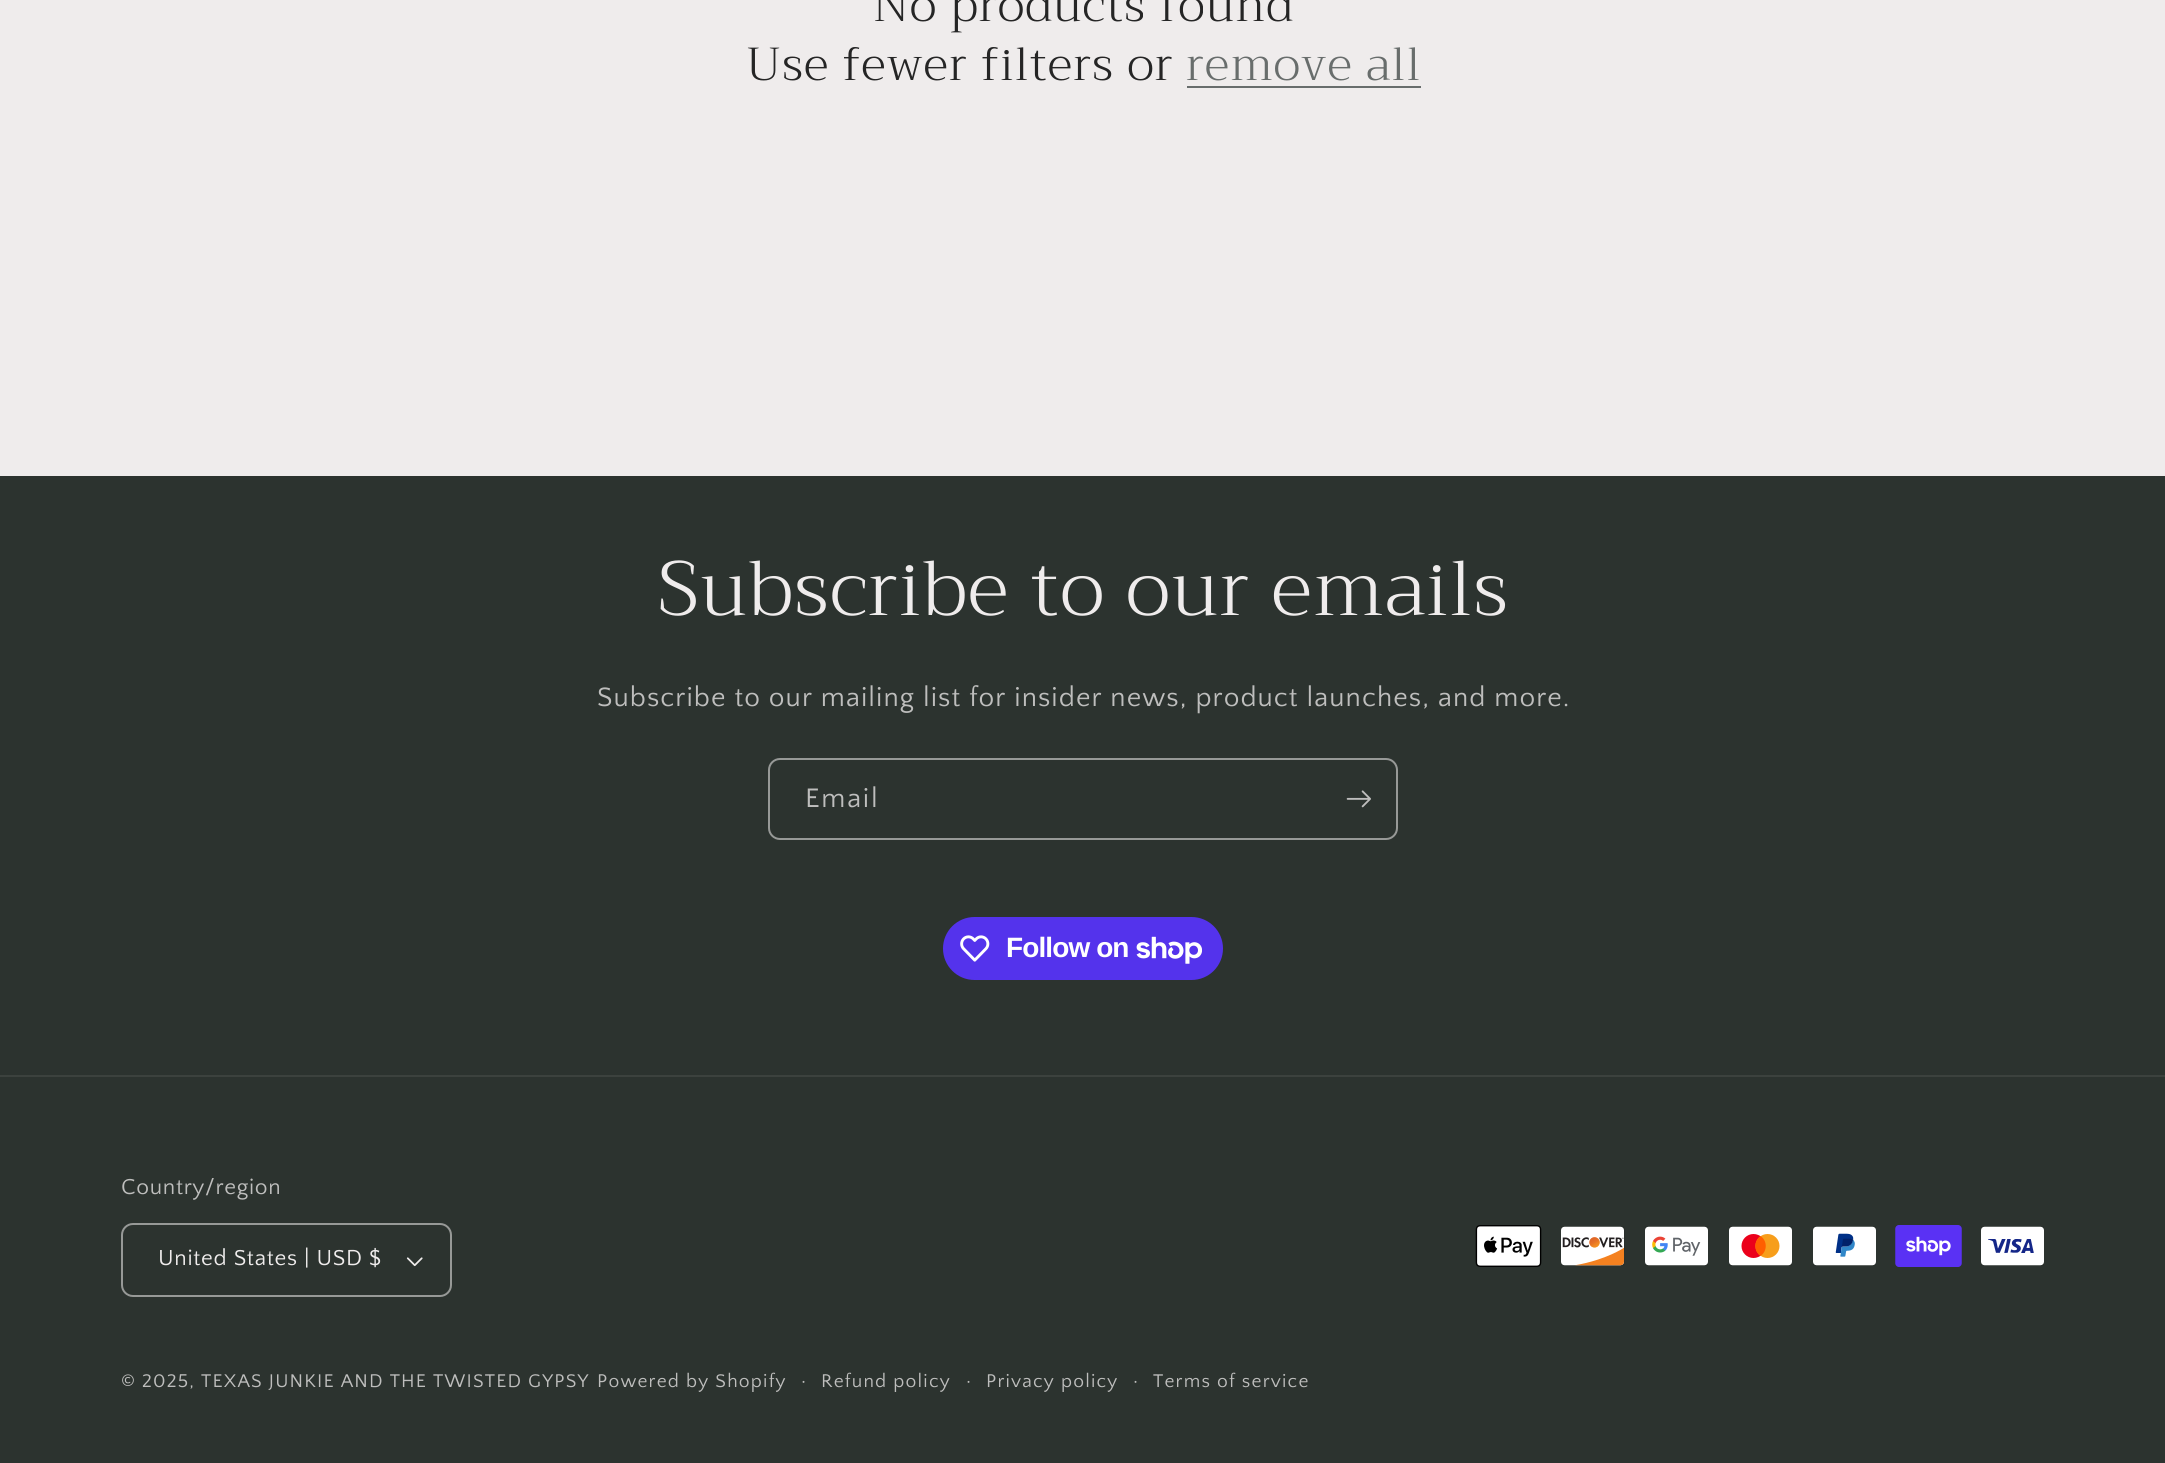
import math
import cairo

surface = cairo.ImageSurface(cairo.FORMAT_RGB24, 2165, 1463)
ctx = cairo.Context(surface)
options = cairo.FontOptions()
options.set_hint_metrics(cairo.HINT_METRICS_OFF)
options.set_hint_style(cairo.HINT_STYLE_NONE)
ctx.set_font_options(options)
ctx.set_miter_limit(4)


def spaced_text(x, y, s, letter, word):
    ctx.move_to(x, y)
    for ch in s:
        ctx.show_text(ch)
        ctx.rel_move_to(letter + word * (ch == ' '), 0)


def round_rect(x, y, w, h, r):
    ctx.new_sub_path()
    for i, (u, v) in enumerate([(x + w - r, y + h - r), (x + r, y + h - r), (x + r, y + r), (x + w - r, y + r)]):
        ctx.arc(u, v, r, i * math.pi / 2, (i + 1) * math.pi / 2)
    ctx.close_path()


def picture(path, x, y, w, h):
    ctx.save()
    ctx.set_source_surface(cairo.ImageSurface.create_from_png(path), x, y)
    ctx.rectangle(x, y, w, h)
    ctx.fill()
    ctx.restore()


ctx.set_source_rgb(0.937, 0.925, 0.925)
ctx.paint()
ctx.select_font_face("Trirong Light")
ctx.set_font_size(46.25)
ctx.set_source_rgb(0.145, 0.145, 0.145)
spaced_text(873, 21, "No products found", 1.2, 0)
spaced_text(746, 80, "Use fewer filters or", 1.2, 0)
ctx.set_source_rgb(0.408, 0.427, 0.424)
spaced_text(1186, 80, "remove all", 1.2, 0)
ctx.rectangle(1187, 86, 234, 2)
ctx.fill()
ctx.set_source_rgb(0.173, 0.2, 0.184)
ctx.rectangle(0, 476, 2165, 987)
ctx.fill()
ctx.set_font_size(77)
ctx.set_source_rgb(0.937, 0.925, 0.925)
spaced_text(658, 615, "Subscribe to our emails", 1.2, 0)
ctx.select_font_face("Quattrocento Sans")
ctx.set_font_size(28)
ctx.set_source_rgb(0.745, 0.745, 0.741)
spaced_text(597, 706, "Subscribe to our mailing list for insider news, product launches, and more.", 1.05, 0)
round_rect(769, 759, 628, 80, 11)
ctx.set_source_rgb(0.592, 0.6, 0.592)
ctx.stroke()
ctx.set_source_rgb(0.745, 0.745, 0.741)
spaced_text(805, 807, "Email", 1.75, 0)
picture("img1.png", 1346, 790, 25, 18)
ctx.set_source_rgb(0.329, 0.2, 0.922)
round_rect(943, 917, 280, 63, 31.5)
ctx.fill()
picture("img2.png", 960, 935, 30, 27)
ctx.select_font_face("Liberation Sans", cairo.FONT_SLANT_NORMAL, cairo.FONT_WEIGHT_BOLD)
ctx.set_source_rgb(1, 1, 1)
spaced_text(1006, 957, "Follow on", -0.9, 0)
picture("img3.png", 1136, 936, 66, 28)
ctx.set_source_rgb(0.235, 0.259, 0.243)
ctx.rectangle(0, 1075, 2165, 2)
ctx.fill()
ctx.select_font_face("Quattrocento Sans")
ctx.set_font_size(22.75)
ctx.set_source_rgb(0.745, 0.745, 0.741)
spaced_text(121, 1194, "Country/region", 0.7, 0)
picture("img4.png", 406, 1257, 17, 10)
round_rect(122, 1224, 329, 72, 11)
ctx.set_source_rgb(0.592, 0.6, 0.592)
ctx.stroke()
ctx.set_source_rgb(0.937, 0.925, 0.925)
spaced_text(158, 1265, "United States | USD $", 0.7, 0)
picture("img5.png", 1475, 1225, 67, 42)
picture("img6.png", 1561, 1226, 64, 40)
picture("img7.png", 1645, 1226, 63, 40)
picture("img8.png", 1729, 1226, 63, 40)
picture("img9.png", 1813, 1226, 63, 40)
picture("img10.png", 1895, 1225, 67, 42)
picture("img11.png", 1981, 1226, 63, 40)
ctx.set_font_size(19.25)
ctx.set_source_rgb(0.745, 0.745, 0.741)
spaced_text(121, 1387, "© 2025, TEXAS JUNKIE AND THE TWISTED GYPSY", 1.2, 0)
spaced_text(597, 1387, "Powered by Shopify", 1.2, 0)
ctx.set_font_size(21)
spaced_text(801, 1387, "·", 1.2, 0)
ctx.set_font_size(19.25)
spaced_text(821, 1387, "Refund policy", 1.2, 0)
ctx.set_font_size(21)
spaced_text(966, 1387, "·", 1.2, 0)
ctx.set_font_size(19.25)
spaced_text(986, 1387, "Privacy policy", 1.2, 0)
ctx.set_font_size(21)
spaced_text(1133, 1387, "·", 1.2, 0)
ctx.set_font_size(19.25)
spaced_text(1153, 1387, "Terms of service", 1.2, 0)
surface.write_to_png("page.png")
